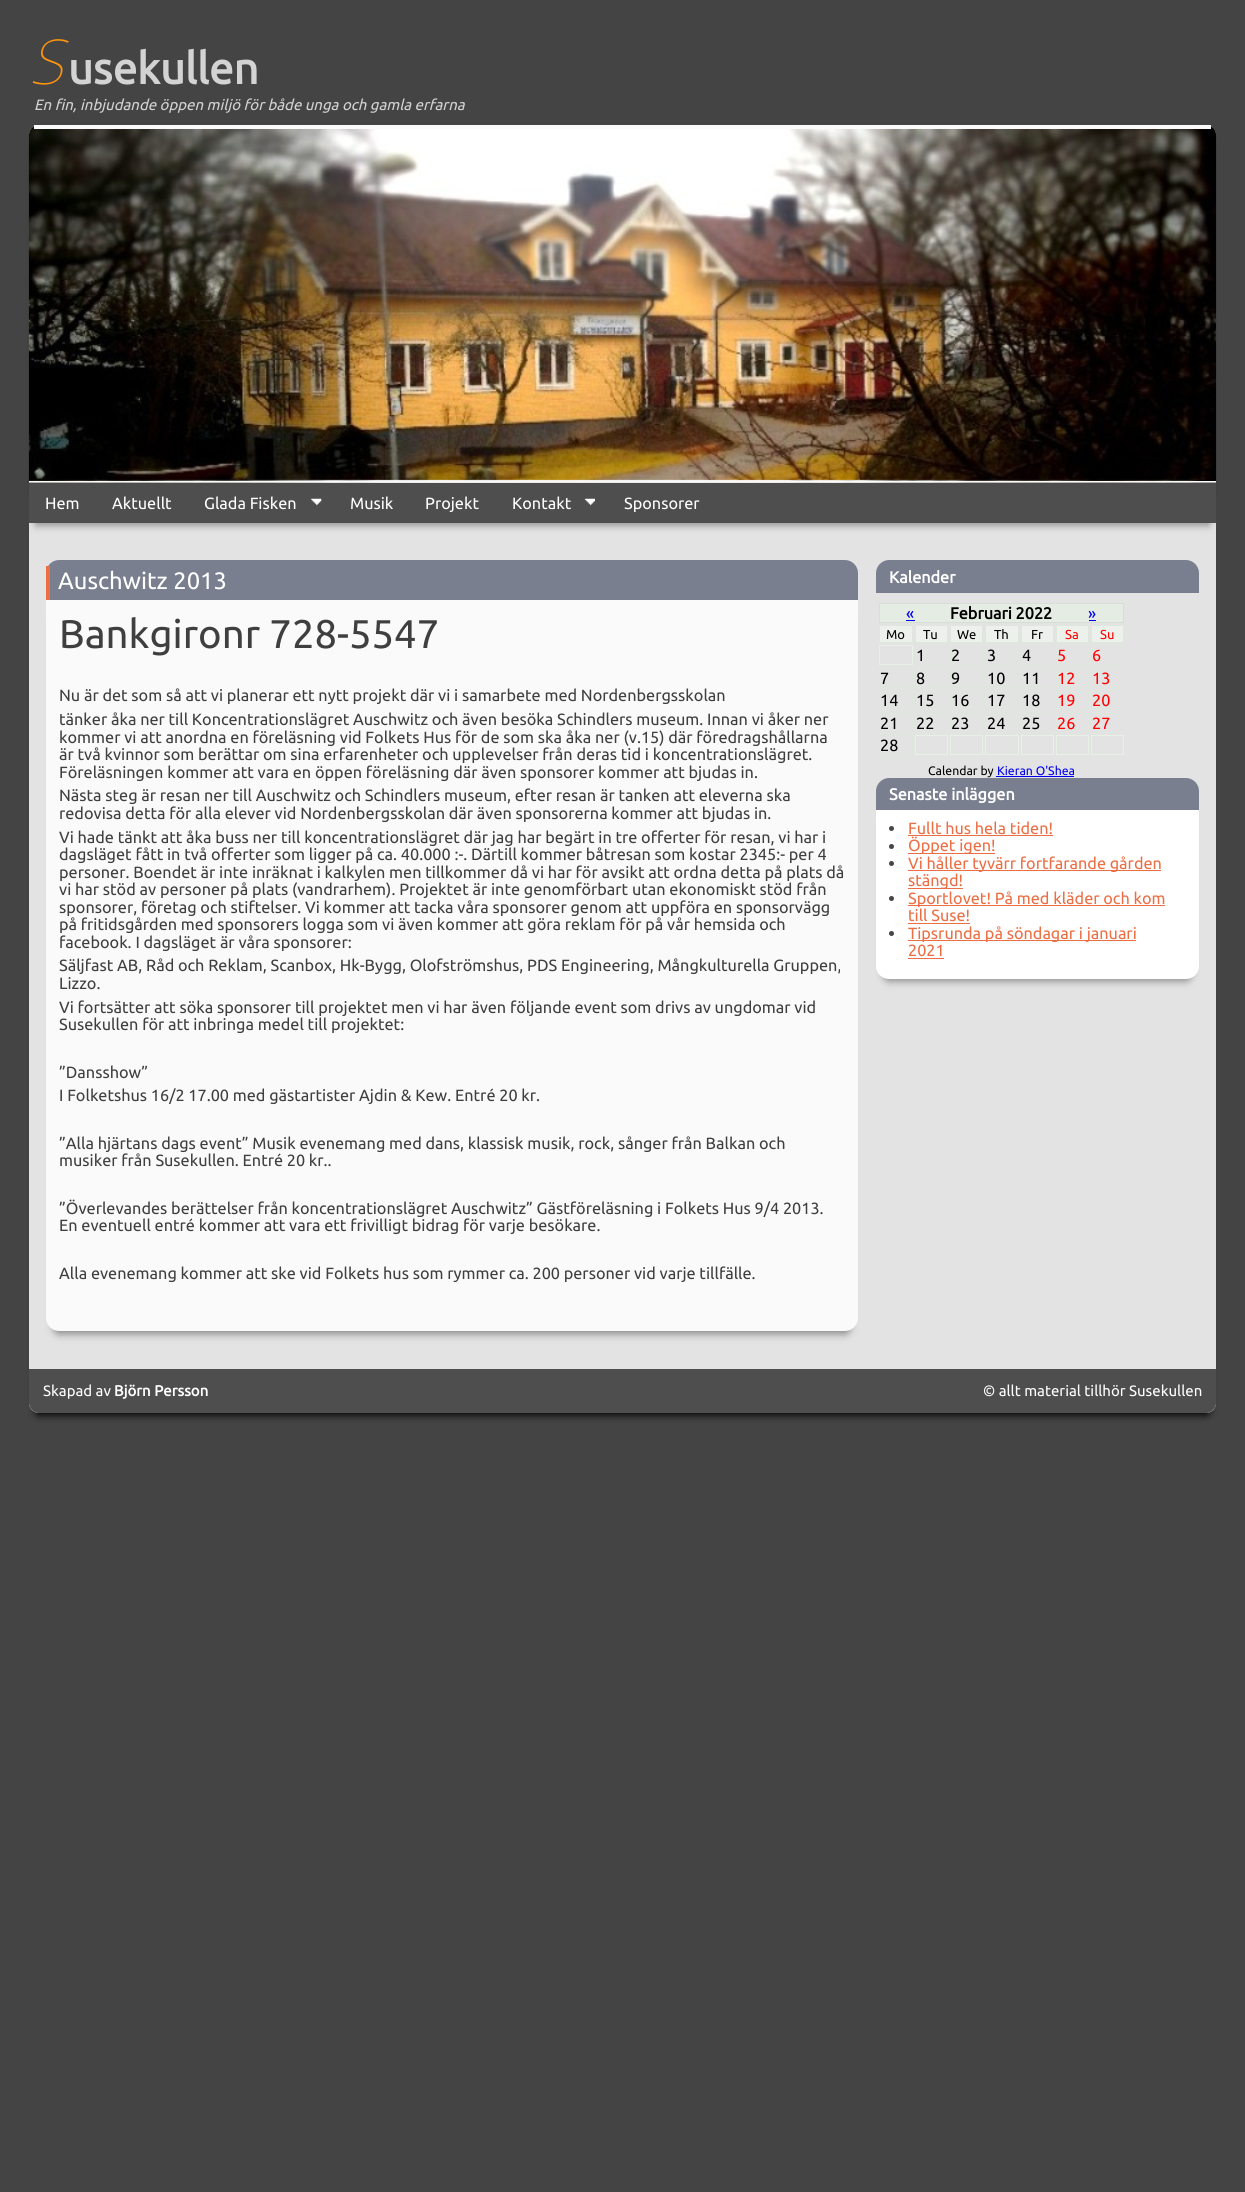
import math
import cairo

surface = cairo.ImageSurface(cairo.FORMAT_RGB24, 1245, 2192)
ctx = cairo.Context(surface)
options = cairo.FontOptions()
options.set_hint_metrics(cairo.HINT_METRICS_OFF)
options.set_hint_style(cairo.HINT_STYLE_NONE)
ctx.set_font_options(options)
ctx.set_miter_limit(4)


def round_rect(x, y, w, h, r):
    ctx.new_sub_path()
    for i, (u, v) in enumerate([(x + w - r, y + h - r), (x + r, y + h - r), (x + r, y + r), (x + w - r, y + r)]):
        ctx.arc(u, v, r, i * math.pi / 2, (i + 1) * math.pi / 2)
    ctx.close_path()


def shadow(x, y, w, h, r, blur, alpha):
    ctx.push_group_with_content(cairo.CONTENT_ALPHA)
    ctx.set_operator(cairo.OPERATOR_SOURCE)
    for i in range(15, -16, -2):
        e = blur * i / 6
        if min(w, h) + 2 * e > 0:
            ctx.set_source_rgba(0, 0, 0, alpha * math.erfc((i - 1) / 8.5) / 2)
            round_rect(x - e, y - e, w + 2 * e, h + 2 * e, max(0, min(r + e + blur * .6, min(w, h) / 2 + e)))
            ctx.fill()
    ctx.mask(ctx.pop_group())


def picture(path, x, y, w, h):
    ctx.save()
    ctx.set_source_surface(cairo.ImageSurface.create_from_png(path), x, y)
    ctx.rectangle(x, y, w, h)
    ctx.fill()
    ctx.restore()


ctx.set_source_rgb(0.267, 0.267, 0.267)
ctx.paint()
ctx.select_font_face("Noto Sans Thin", cairo.FONT_SLANT_ITALIC)
ctx.set_font_size(62)
ctx.set_source_rgb(1, 0.584, 0.055)
ctx.move_to(29, 84)
ctx.show_text("S")
ctx.select_font_face("Ubuntu", cairo.FONT_SLANT_NORMAL, cairo.FONT_WEIGHT_BOLD)
ctx.set_font_size(43.75)
ctx.set_source_rgb(0.827, 0.827, 0.827)
ctx.move_to(68, 84)
ctx.show_text("usekullen")
ctx.select_font_face("Ubuntu", cairo.FONT_SLANT_ITALIC)
ctx.set_font_size(15)
ctx.move_to(34, 110)
ctx.show_text("En fin, inbjudande öppen miljö för både unga och gamla erfarna")
ctx.set_source_rgb(0, 0, 0)
shadow(36, 143, 1173, 1272, 2.5, 4, 1)
ctx.set_source_rgb(0.89, 0.89, 0.89)
round_rect(29, 125, 1187, 1288, 10)
ctx.fill()
picture("img1.png", 28, 126, 1189, 357)
ctx.set_source_rgb(0.98, 0.98, 0.98)
ctx.rectangle(34, 125, 1177, 4)
ctx.fill()
ctx.rectangle(29, 481, 1187, 1)
ctx.fill()
ctx.set_source_rgb(0.533, 0.533, 0.533)
shadow(36, 500, 1173, 25, 0, 4, 1)
ctx.set_source_rgb(0.306, 0.306, 0.306)
ctx.rectangle(29, 483, 1187, 40)
ctx.fill()
ctx.select_font_face("Ubuntu")
ctx.set_font_size(16.25)
ctx.set_source_rgb(1, 1, 1)
ctx.move_to(45, 509)
ctx.show_text("Hem")
ctx.move_to(112, 509)
ctx.show_text("Aktuellt")
ctx.move_to(204, 509)
ctx.show_text("Glada Fisken")
picture("img2.png", 311, 498, 11, 8)
ctx.move_to(350, 509)
ctx.show_text("Musik")
ctx.move_to(425, 509)
ctx.show_text("Projekt")
ctx.move_to(512, 509)
ctx.show_text("Kontakt")
picture("img3.png", 584, 498, 11, 8)
ctx.move_to(624, 509)
ctx.show_text("Sponsorer")
ctx.set_source_rgb(0.475, 0.498, 0.561)
ctx.new_path()
ctx.move_to(59, 560)
ctx.line_to(845, 560)
ctx.curve_to(852, 560, 858, 566, 858, 573)
ctx.line_to(858, 600)
ctx.line_to(46, 600)
ctx.line_to(46, 573)
ctx.curve_to(46, 566, 52, 560, 59, 560)
ctx.close_path()
ctx.fill()
ctx.set_source_rgb(0.922, 0.431, 0.267)
ctx.rectangle(46, 566, 4, 34)
ctx.fill()
ctx.set_font_size(23.75)
ctx.set_source_rgb(1, 1, 1)
ctx.move_to(58, 589)
ctx.show_text("Auschwitz 2013")
ctx.set_source_rgb(0.533, 0.533, 0.533)
shadow(54, 618, 796, 716, 5, 4, 1)
ctx.set_source_rgb(0.98, 0.98, 0.98)
ctx.new_path()
ctx.move_to(46, 600)
ctx.line_to(858, 600)
ctx.line_to(858, 1318)
ctx.curve_to(858, 1325, 852, 1331, 845, 1331)
ctx.line_to(59, 1331)
ctx.curve_to(52, 1331, 46, 1325, 46, 1318)
ctx.close_path()
ctx.fill()
ctx.set_font_size(40)
ctx.set_source_rgb(0.247, 0.247, 0.247)
ctx.move_to(59, 648)
ctx.show_text("Bankgironr 728-5547")
ctx.set_font_size(16.25)
ctx.move_to(59, 701)
ctx.show_text("Nu är det som så att vi planerar ett nytt projekt där vi i samarbete med Nordenbergsskolan")
ctx.move_to(59, 725)
ctx.show_text("tänker åka ner till Koncentrationslägret Auschwitz och även besöka Schindlers museum. Innan vi åker ner")
ctx.move_to(59, 743)
ctx.show_text("kommer vi att anordna en föreläsning vid Folkets Hus för de som ska åka ner (v.15) där föredragshållarna")
ctx.move_to(59, 760)
ctx.show_text("är två kvinnor som berättar om sina erfarenheter och upplevelser från deras tid i koncentrationslägret.")
ctx.move_to(59, 778)
ctx.show_text("Föreläsningen kommer att vara en öppen föreläsning där även sponsorer kommer att bjudas in.")
ctx.move_to(59, 801)
ctx.show_text("Nästa steg är resan ner till Auschwitz och Schindlers museum, efter resan är tanken att eleverna ska")
ctx.move_to(59, 819)
ctx.show_text("redovisa detta för alla elever vid Nordenbergsskolan där även sponsorerna kommer att bjudas in.")
ctx.move_to(59, 843)
ctx.show_text("Vi hade tänkt att åka buss ner till koncentrationslägret där jag har begärt in tre offerter för resan, vi har i")
ctx.move_to(59, 860)
ctx.show_text("dagsläget fått in två offerter som ligger på ca. 40.000 :-. Därtill kommer båtresan som kostar 2345:- per 4")
ctx.move_to(59, 878)
ctx.show_text("personer. Boendet är inte inräknat i kalkylen men tillkommer då vi har för avsikt att ordna detta på plats då")
ctx.move_to(59, 895)
ctx.show_text("vi har stöd av personer på plats (vandrarhem). Projektet är inte genomförbart utan ekonomiskt stöd från")
ctx.move_to(59, 913)
ctx.show_text("sponsorer, företag och stiftelser. Vi kommer att tacka våra sponsorer genom att uppföra en sponsorvägg")
ctx.move_to(59, 930)
ctx.show_text("på fritidsgården med sponsorers logga som vi även kommer att göra reklam för på vår hemsida och")
ctx.move_to(59, 948)
ctx.show_text("facebook. I dagsläget är våra sponsorer:")
ctx.move_to(59, 971)
ctx.show_text("Säljfast AB, Råd och Reklam, Scanbox, Hk-Bygg, Olofströmshus, PDS Engineering, Mångkulturella Gruppen,")
ctx.move_to(59, 989)
ctx.show_text("Lizzo.")
ctx.move_to(59, 1013)
ctx.show_text("Vi fortsätter att söka sponsorer till projektet men vi har även följande event som drivs av ungdomar vid")
ctx.move_to(59, 1030)
ctx.show_text("Susekullen för att inbringa medel till projektet:")
ctx.move_to(59, 1078)
ctx.show_text("”Dansshow”")
ctx.move_to(59, 1101)
ctx.show_text("I Folketshus 16/2 17.00 med gästartister Ajdin & Kew. Entré 20 kr.")
ctx.move_to(59, 1149)
ctx.show_text("”Alla hjärtans dags event” Musik evenemang med dans, klassisk musik, rock, sånger från Balkan och")
ctx.move_to(59, 1166)
ctx.show_text("musiker från Susekullen. Entré 20 kr..")
ctx.move_to(59, 1214)
ctx.show_text("”Överlevandes berättelser från koncentrationslägret Auschwitz” Gästföreläsning i Folkets Hus 9/4 2013.")
ctx.move_to(59, 1231)
ctx.show_text("En eventuell entré kommer att vara ett frivilligt bidrag för varje besökare.")
ctx.move_to(59, 1279)
ctx.show_text("Alla evenemang kommer att ske vid Folkets hus som rymmer ca. 200 personer vid varje tillfälle.")
ctx.set_source_rgb(0.475, 0.498, 0.561)
ctx.new_path()
ctx.move_to(889, 560)
ctx.line_to(1186, 560)
ctx.curve_to(1193, 560, 1199, 566, 1199, 573)
ctx.line_to(1199, 593)
ctx.line_to(876, 593)
ctx.line_to(876, 573)
ctx.curve_to(876, 566, 882, 560, 889, 560)
ctx.close_path()
ctx.fill()
ctx.select_font_face("Ubuntu", cairo.FONT_SLANT_NORMAL, cairo.FONT_WEIGHT_BOLD)
ctx.set_source_rgb(1, 1, 1)
ctx.move_to(889, 583)
ctx.show_text("Kalender")
ctx.set_source_rgb(0.894, 0.922, 0.89)
ctx.rectangle(879.5, 603.5, 244, 19)
ctx.fill_preserve()
ctx.set_source_rgb(0.839, 0.871, 0.835)
ctx.set_line_width(1)
ctx.stroke()
ctx.select_font_face("Ubuntu")
ctx.set_source_rgb(0, 0, 0.933)
ctx.move_to(906, 619)
ctx.show_text("«")
ctx.rectangle(906, 620, 9, 1)
ctx.fill()
ctx.select_font_face("Ubuntu", cairo.FONT_SLANT_NORMAL, cairo.FONT_WEIGHT_BOLD)
ctx.set_source_rgb(0, 0, 0)
ctx.move_to(950, 619)
ctx.show_text("Februari 2022")
ctx.select_font_face("Ubuntu")
ctx.set_source_rgb(0, 0, 0.933)
ctx.move_to(1088, 619)
ctx.show_text("»")
ctx.rectangle(1089, 620, 7, 1)
ctx.fill()
ctx.set_source_rgb(0.922, 0.949, 0.918)
ctx.rectangle(879.5, 625.5, 33, 17)
ctx.fill_preserve()
ctx.set_source_rgb(0.875, 0.902, 0.871)
ctx.stroke()
ctx.set_font_size(13)
ctx.set_source_rgb(0, 0, 0)
ctx.move_to(886, 639)
ctx.show_text("Mo")
ctx.set_source_rgb(0.922, 0.949, 0.918)
ctx.rectangle(915.5, 625.5, 32, 17)
ctx.fill_preserve()
ctx.set_source_rgb(0.875, 0.902, 0.871)
ctx.stroke()
ctx.set_source_rgb(0, 0, 0)
ctx.move_to(923, 639)
ctx.show_text("Tu")
ctx.set_source_rgb(0.922, 0.949, 0.918)
ctx.rectangle(950.5, 625.5, 32, 17)
ctx.fill_preserve()
ctx.set_source_rgb(0.875, 0.902, 0.871)
ctx.stroke()
ctx.set_source_rgb(0, 0, 0)
ctx.move_to(957, 639)
ctx.show_text("We")
ctx.set_source_rgb(0.922, 0.949, 0.918)
ctx.rectangle(985.5, 625.5, 33, 17)
ctx.fill_preserve()
ctx.set_source_rgb(0.875, 0.902, 0.871)
ctx.stroke()
ctx.set_source_rgb(0, 0, 0)
ctx.move_to(994, 639)
ctx.show_text("Th")
ctx.set_source_rgb(0.922, 0.949, 0.918)
ctx.rectangle(1021.5, 625.5, 32, 17)
ctx.fill_preserve()
ctx.set_source_rgb(0.875, 0.902, 0.871)
ctx.stroke()
ctx.set_source_rgb(0, 0, 0)
ctx.move_to(1031, 639)
ctx.show_text("Fr")
ctx.set_source_rgb(0.922, 0.949, 0.918)
ctx.rectangle(1056.5, 625.5, 32, 17)
ctx.fill_preserve()
ctx.set_source_rgb(0.875, 0.902, 0.871)
ctx.stroke()
ctx.set_source_rgb(1, 0, 0)
ctx.move_to(1065, 639)
ctx.show_text("Sa")
ctx.set_source_rgb(0.922, 0.949, 0.918)
ctx.rectangle(1091.5, 625.5, 32, 17)
ctx.fill_preserve()
ctx.set_source_rgb(0.875, 0.902, 0.871)
ctx.stroke()
ctx.set_source_rgb(1, 0, 0)
ctx.move_to(1100, 639)
ctx.show_text("Su")
ctx.rectangle(879.5, 645.5, 33, 19)
ctx.set_source_rgb(0.914, 0.941, 0.91)
ctx.stroke()
ctx.rectangle(915.5, 645.5, 32, 19)
ctx.set_source_rgb(0.875, 0.902, 0.871)
ctx.stroke()
ctx.set_font_size(16.25)
ctx.set_source_rgb(0, 0, 0)
ctx.move_to(916, 661)
ctx.show_text("1")
ctx.rectangle(950.5, 645.5, 32, 19)
ctx.set_source_rgb(0.875, 0.902, 0.871)
ctx.stroke()
ctx.set_source_rgb(0, 0, 0)
ctx.move_to(951, 661)
ctx.show_text("2")
ctx.rectangle(985.5, 645.5, 33, 19)
ctx.set_source_rgb(0.875, 0.902, 0.871)
ctx.stroke()
ctx.set_source_rgb(0, 0, 0)
ctx.move_to(987, 661)
ctx.show_text("3")
ctx.rectangle(1021.5, 645.5, 32, 19)
ctx.set_source_rgb(0.875, 0.902, 0.871)
ctx.stroke()
ctx.set_source_rgb(0, 0, 0)
ctx.move_to(1022, 661)
ctx.show_text("4")
ctx.rectangle(1056.5, 645.5, 32, 19)
ctx.set_source_rgb(0.875, 0.902, 0.871)
ctx.stroke()
ctx.set_source_rgb(1, 0, 0)
ctx.move_to(1057, 661)
ctx.show_text("5")
ctx.rectangle(1091.5, 645.5, 32, 19)
ctx.set_source_rgb(0.875, 0.902, 0.871)
ctx.stroke()
ctx.set_source_rgb(1, 0, 0)
ctx.move_to(1092, 661)
ctx.show_text("6")
ctx.rectangle(879.5, 668.5, 33, 19)
ctx.set_source_rgb(0.875, 0.902, 0.871)
ctx.stroke()
ctx.set_source_rgb(0, 0, 0)
ctx.move_to(880, 684)
ctx.show_text("7")
ctx.rectangle(915.5, 668.5, 32, 19)
ctx.set_source_rgb(0.875, 0.902, 0.871)
ctx.stroke()
ctx.set_source_rgb(0, 0, 0)
ctx.move_to(916, 684)
ctx.show_text("8")
ctx.rectangle(950.5, 668.5, 32, 19)
ctx.set_source_rgb(0.875, 0.902, 0.871)
ctx.stroke()
ctx.set_source_rgb(0, 0, 0)
ctx.move_to(951, 684)
ctx.show_text("9")
ctx.rectangle(985.5, 668.5, 33, 19)
ctx.set_source_rgb(0.875, 0.902, 0.871)
ctx.stroke()
ctx.set_source_rgb(0, 0, 0)
ctx.move_to(987, 684)
ctx.show_text("10")
ctx.rectangle(1021.5, 668.5, 32, 19)
ctx.set_source_rgb(0.875, 0.902, 0.871)
ctx.stroke()
ctx.set_source_rgb(0, 0, 0)
ctx.move_to(1022, 684)
ctx.show_text("11")
ctx.rectangle(1056.5, 668.5, 32, 19)
ctx.set_source_rgb(0.875, 0.902, 0.871)
ctx.stroke()
ctx.set_source_rgb(1, 0, 0)
ctx.move_to(1057, 684)
ctx.show_text("12")
ctx.rectangle(1091.5, 668.5, 32, 19)
ctx.set_source_rgb(0.875, 0.902, 0.871)
ctx.stroke()
ctx.set_source_rgb(1, 0, 0)
ctx.move_to(1092, 684)
ctx.show_text("13")
ctx.rectangle(879.5, 690.5, 33, 19)
ctx.set_source_rgb(0.875, 0.902, 0.871)
ctx.stroke()
ctx.set_source_rgb(0, 0, 0)
ctx.move_to(880, 706)
ctx.show_text("14")
ctx.rectangle(915.5, 690.5, 32, 19)
ctx.set_source_rgb(0.875, 0.902, 0.871)
ctx.stroke()
ctx.set_source_rgb(0, 0, 0)
ctx.move_to(916, 706)
ctx.show_text("15")
ctx.rectangle(950.5, 690.5, 32, 19)
ctx.set_source_rgb(0.875, 0.902, 0.871)
ctx.stroke()
ctx.set_source_rgb(0, 0, 0)
ctx.move_to(951, 706)
ctx.show_text("16")
ctx.rectangle(985.5, 690.5, 33, 19)
ctx.set_source_rgb(0.875, 0.902, 0.871)
ctx.stroke()
ctx.set_source_rgb(0, 0, 0)
ctx.move_to(987, 706)
ctx.show_text("17")
ctx.rectangle(1021.5, 690.5, 32, 19)
ctx.set_source_rgb(0.875, 0.902, 0.871)
ctx.stroke()
ctx.set_source_rgb(0, 0, 0)
ctx.move_to(1022, 706)
ctx.show_text("18")
ctx.rectangle(1056.5, 690.5, 32, 19)
ctx.set_source_rgb(0.875, 0.902, 0.871)
ctx.stroke()
ctx.set_source_rgb(1, 0, 0)
ctx.move_to(1057, 706)
ctx.show_text("19")
ctx.rectangle(1091.5, 690.5, 32, 19)
ctx.set_source_rgb(0.875, 0.902, 0.871)
ctx.stroke()
ctx.set_source_rgb(1, 0, 0)
ctx.move_to(1092, 706)
ctx.show_text("20")
ctx.rectangle(879.5, 713.5, 33, 19)
ctx.set_source_rgb(0.875, 0.902, 0.871)
ctx.stroke()
ctx.set_source_rgb(0, 0, 0)
ctx.move_to(880, 729)
ctx.show_text("21")
ctx.rectangle(915.5, 713.5, 32, 19)
ctx.set_source_rgb(0.875, 0.902, 0.871)
ctx.stroke()
ctx.set_source_rgb(0, 0, 0)
ctx.move_to(916, 729)
ctx.show_text("22")
ctx.rectangle(950.5, 713.5, 32, 19)
ctx.set_source_rgb(0.875, 0.902, 0.871)
ctx.stroke()
ctx.set_source_rgb(0, 0, 0)
ctx.move_to(951, 729)
ctx.show_text("23")
ctx.rectangle(985.5, 713.5, 33, 19)
ctx.set_source_rgb(0.875, 0.902, 0.871)
ctx.stroke()
ctx.set_source_rgb(0, 0, 0)
ctx.move_to(987, 729)
ctx.show_text("24")
ctx.rectangle(1021.5, 713.5, 32, 19)
ctx.set_source_rgb(0.875, 0.902, 0.871)
ctx.stroke()
ctx.set_source_rgb(0, 0, 0)
ctx.move_to(1022, 729)
ctx.show_text("25")
ctx.rectangle(1056.5, 713.5, 32, 19)
ctx.set_source_rgb(0.875, 0.902, 0.871)
ctx.stroke()
ctx.set_source_rgb(1, 0, 0)
ctx.move_to(1057, 729)
ctx.show_text("26")
ctx.rectangle(1091.5, 713.5, 32, 19)
ctx.set_source_rgb(0.875, 0.902, 0.871)
ctx.stroke()
ctx.set_source_rgb(1, 0, 0)
ctx.move_to(1092, 729)
ctx.show_text("27")
ctx.rectangle(879.5, 735.5, 33, 19)
ctx.set_source_rgb(0.875, 0.902, 0.871)
ctx.stroke()
ctx.set_source_rgb(0, 0, 0)
ctx.move_to(880, 751)
ctx.show_text("28")
ctx.rectangle(915.5, 735.5, 32, 19)
ctx.set_source_rgb(0.914, 0.941, 0.91)
ctx.stroke()
ctx.rectangle(950.5, 735.5, 32, 19)
ctx.stroke()
ctx.rectangle(985.5, 735.5, 33, 19)
ctx.stroke()
ctx.rectangle(1021.5, 735.5, 32, 19)
ctx.stroke()
ctx.rectangle(1056.5, 735.5, 32, 19)
ctx.stroke()
ctx.rectangle(1091.5, 735.5, 32, 19)
ctx.stroke()
ctx.set_font_size(12.25)
ctx.set_source_rgb(0, 0, 0)
ctx.move_to(928, 775)
ctx.show_text("Calendar by")
ctx.set_source_rgb(0, 0, 0.933)
ctx.move_to(997, 775)
ctx.show_text("Kieran O'Shea")
ctx.rectangle(996, 776, 78, 1)
ctx.fill()
ctx.set_source_rgb(0.533, 0.533, 0.533)
shadow(884, 818, 307, 163, 5, 4, 1)
ctx.set_source_rgb(1, 1, 1)
round_rect(876, 800, 323, 179, 13)
ctx.fill()
ctx.set_source_rgb(0.475, 0.498, 0.561)
ctx.new_path()
ctx.move_to(889, 778)
ctx.line_to(1186, 778)
ctx.curve_to(1193, 778, 1199, 784, 1199, 791)
ctx.line_to(1199, 810)
ctx.line_to(876, 810)
ctx.line_to(876, 791)
ctx.curve_to(876, 784, 882, 778, 889, 778)
ctx.close_path()
ctx.fill()
ctx.select_font_face("Ubuntu", cairo.FONT_SLANT_NORMAL, cairo.FONT_WEIGHT_BOLD)
ctx.set_font_size(16.25)
ctx.set_source_rgb(1, 1, 1)
ctx.move_to(889, 800)
ctx.show_text("Senaste inläggen")
ctx.set_source_rgb(0.275, 0.275, 0.275)
ctx.new_path()
ctx.arc(891.5, 828.5, 2.5, 0, 2 * math.pi)
ctx.fill()
ctx.select_font_face("Ubuntu")
ctx.set_source_rgb(0.922, 0.431, 0.267)
ctx.move_to(908, 834)
ctx.show_text("Fullt hus hela tiden!")
ctx.rectangle(908, 835, 145, 1)
ctx.fill()
ctx.set_source_rgb(0.275, 0.275, 0.275)
ctx.arc(891.5, 846.5, 2.5, 0, 2 * math.pi)
ctx.fill()
ctx.set_source_rgb(0.922, 0.431, 0.267)
ctx.rectangle(908, 853, 87, 1)
ctx.fill()
ctx.move_to(908, 851)
ctx.show_text("Öppet igen!")
ctx.set_source_rgb(0.275, 0.275, 0.275)
ctx.new_path()
ctx.arc(891.5, 863.5, 2.5, 0, 2 * math.pi)
ctx.fill()
ctx.set_source_rgb(0.922, 0.431, 0.267)
ctx.rectangle(908, 870, 253, 1)
ctx.fill()
ctx.move_to(908, 869)
ctx.show_text("Vi håller tyvärr fortfarande gården")
ctx.rectangle(908, 888, 55, 1)
ctx.fill()
ctx.move_to(908, 886)
ctx.show_text("stängd!")
ctx.set_source_rgb(0.275, 0.275, 0.275)
ctx.new_path()
ctx.arc(891.5, 898.5, 2.5, 0, 2 * math.pi)
ctx.fill()
ctx.set_source_rgb(0.922, 0.431, 0.267)
ctx.rectangle(908, 905, 257, 1)
ctx.fill()
ctx.move_to(908, 904)
ctx.show_text("Sportlovet! På med kläder och kom")
ctx.move_to(908, 921)
ctx.show_text("till Suse!")
ctx.rectangle(908, 923, 62, 1)
ctx.fill()
ctx.set_source_rgb(0.275, 0.275, 0.275)
ctx.arc(891.5, 933.5, 2.5, 0, 2 * math.pi)
ctx.fill()
ctx.set_source_rgb(0.922, 0.431, 0.267)
ctx.rectangle(908, 940, 228, 1)
ctx.fill()
ctx.move_to(908, 939)
ctx.show_text("Tipsrunda på söndagar i januari")
ctx.move_to(908, 956)
ctx.show_text("2021")
ctx.rectangle(908, 958, 36, 1)
ctx.fill()
ctx.set_source_rgb(0.306, 0.306, 0.306)
ctx.new_path()
ctx.move_to(29.5, 1369.5)
ctx.line_to(1215.5, 1369.5)
ctx.line_to(1215.5, 1403)
ctx.curve_to(1215.5, 1408, 1211, 1412.5, 1206, 1412.5)
ctx.line_to(39, 1412.5)
ctx.curve_to(34, 1412.5, 29.5, 1408, 29.5, 1403)
ctx.close_path()
ctx.fill_preserve()
ctx.stroke()
ctx.set_font_size(15)
ctx.set_source_rgb(1, 1, 1)
ctx.move_to(43, 1396)
ctx.show_text("Skapad av")
ctx.select_font_face("Ubuntu", cairo.FONT_SLANT_NORMAL, cairo.FONT_WEIGHT_BOLD)
ctx.move_to(114, 1396)
ctx.show_text("Björn Persson")
ctx.select_font_face("Ubuntu")
ctx.move_to(983, 1396)
ctx.show_text("© allt material tillhör Susekullen")
surface.write_to_png("page.png")
